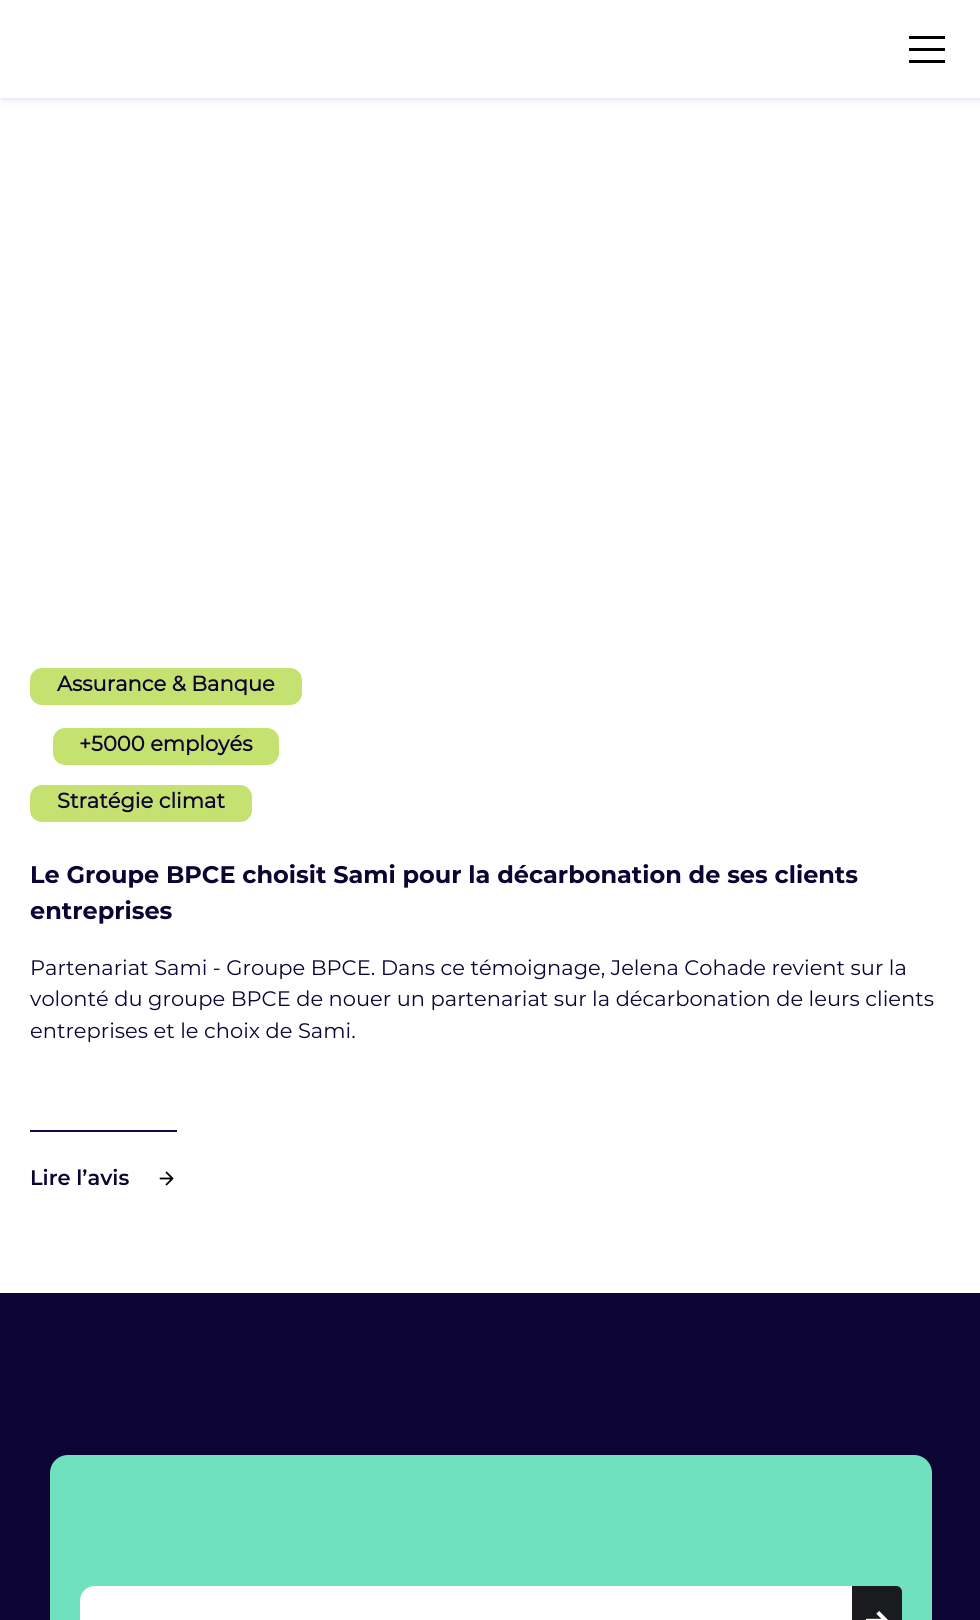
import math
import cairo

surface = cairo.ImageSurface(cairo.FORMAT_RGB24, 980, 1620)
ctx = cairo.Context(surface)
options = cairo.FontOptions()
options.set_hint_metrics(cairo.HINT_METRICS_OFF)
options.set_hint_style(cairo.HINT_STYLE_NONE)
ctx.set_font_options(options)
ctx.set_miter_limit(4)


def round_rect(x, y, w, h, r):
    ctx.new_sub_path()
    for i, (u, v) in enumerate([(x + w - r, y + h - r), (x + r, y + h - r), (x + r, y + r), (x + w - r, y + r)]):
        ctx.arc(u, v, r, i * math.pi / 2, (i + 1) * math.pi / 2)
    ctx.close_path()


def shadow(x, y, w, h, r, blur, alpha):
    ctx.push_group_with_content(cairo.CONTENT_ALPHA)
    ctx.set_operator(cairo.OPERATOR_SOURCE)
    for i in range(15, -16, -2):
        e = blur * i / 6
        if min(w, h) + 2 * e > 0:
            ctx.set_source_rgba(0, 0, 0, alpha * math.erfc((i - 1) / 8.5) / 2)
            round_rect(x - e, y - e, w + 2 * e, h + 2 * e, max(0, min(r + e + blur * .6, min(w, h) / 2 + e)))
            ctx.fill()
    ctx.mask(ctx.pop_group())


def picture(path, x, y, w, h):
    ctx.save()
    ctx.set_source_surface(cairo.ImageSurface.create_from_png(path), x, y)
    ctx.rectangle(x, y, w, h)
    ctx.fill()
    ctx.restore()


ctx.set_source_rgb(1, 1, 1)
ctx.paint()
ctx.set_source_rgb(0.843, 0.792, 0.961)
shadow(2, 0, 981, 98, 0, 4, 1)
ctx.set_source_rgb(1, 1, 1)
ctx.rectangle(0, 0, 980, 98)
ctx.fill()
ctx.set_source_rgb(0, 0, 0)
ctx.rectangle(909, 36, 36, 3)
ctx.fill()
ctx.rectangle(909, 48, 36, 3)
ctx.fill()
ctx.rectangle(909, 60, 36, 3)
ctx.fill()
ctx.set_source_rgb(0.773, 0.886, 0.443)
round_rect(30, 668, 272, 37, 12)
ctx.fill()
ctx.select_font_face("Montserrat", cairo.FONT_SLANT_NORMAL, cairo.FONT_WEIGHT_BOLD)
ctx.set_font_size(21)
ctx.set_source_rgb(0.047, 0.016, 0.2)
ctx.move_to(57, 691)
ctx.show_text("Assurance & Banque")
ctx.set_source_rgb(0.773, 0.886, 0.443)
round_rect(53, 728, 226, 37, 12)
ctx.fill()
ctx.set_source_rgb(0.047, 0.016, 0.2)
ctx.move_to(79, 751)
ctx.show_text("+5000 employés")
ctx.set_source_rgb(0.773, 0.886, 0.443)
round_rect(30, 785, 222, 37, 12)
ctx.fill()
ctx.set_source_rgb(0.047, 0.016, 0.2)
ctx.move_to(57, 808)
ctx.show_text("Stratégie climat")
ctx.select_font_face("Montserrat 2", cairo.FONT_SLANT_NORMAL, cairo.FONT_WEIGHT_BOLD)
ctx.set_font_size(24)
ctx.move_to(30, 883)
ctx.show_text("Le Groupe BPCE choisit Sami pour la décarbonation de ses clients")
ctx.move_to(30, 919)
ctx.show_text("entreprises")
ctx.select_font_face("Montserrat")
ctx.set_font_size(21)
ctx.move_to(30, 975)
ctx.show_text("Partenariat Sami - Groupe BPCE. Dans ce témoignage, Jelena Cohade revient sur la")
ctx.move_to(30, 1006)
ctx.show_text("volonté du groupe BPCE de nouer un partenariat sur la décarbonation de leurs clients")
ctx.move_to(30, 1038)
ctx.show_text("entreprises et le choix de Sami.")
ctx.set_source_rgb(0.086, 0.035, 0.282)
ctx.rectangle(30, 1130, 147, 2)
ctx.fill()
ctx.select_font_face("Montserrat SemiBold")
ctx.set_source_rgb(0.047, 0.016, 0.2)
ctx.move_to(30, 1185)
ctx.show_text("Lire l’avis")
ctx.new_path()
ctx.move_to(160.5, 1178.5)
ctx.line_to(172.5, 1178.5)
ctx.move_to(166.5, 1172.5)
ctx.line_to(172.5, 1178.5)
ctx.line_to(166.5, 1184.5)
ctx.set_source_rgb(0, 0, 0)
ctx.set_line_width(1.8)
ctx.set_line_cap(cairo.LINE_CAP_ROUND)
ctx.set_line_join(cairo.LINE_JOIN_ROUND)
ctx.stroke()
ctx.set_source_rgb(0.047, 0.016, 0.2)
ctx.rectangle(0, 1293, 980, 327)
ctx.fill()
ctx.set_source_rgb(0.443, 0.878, 0.749)
round_rect(50, 1455, 882, 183, 18)
ctx.fill()
ctx.set_source_rgb(1, 1, 1)
ctx.new_path()
ctx.move_to(95, 1586)
ctx.line_to(852, 1586)
ctx.line_to(852, 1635)
ctx.line_to(95, 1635)
ctx.curve_to(86.5, 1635, 80, 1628.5, 80, 1620)
ctx.line_to(80, 1601)
ctx.curve_to(80, 1592.5, 86.5, 1586, 95, 1586)
ctx.close_path()
ctx.fill()
ctx.set_source_rgb(0.102, 0.106, 0.122)
ctx.new_path()
ctx.move_to(852, 1586)
ctx.line_to(896, 1586)
ctx.curve_to(899.5, 1586, 902, 1588.5, 902, 1592)
ctx.line_to(902, 1620)
ctx.curve_to(902, 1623.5, 899.5, 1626, 896, 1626)
ctx.line_to(852, 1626)
ctx.close_path()
ctx.fill()
picture("img1.png", 866, 1611, 22, 9)
surface.write_to_png("page.png")
